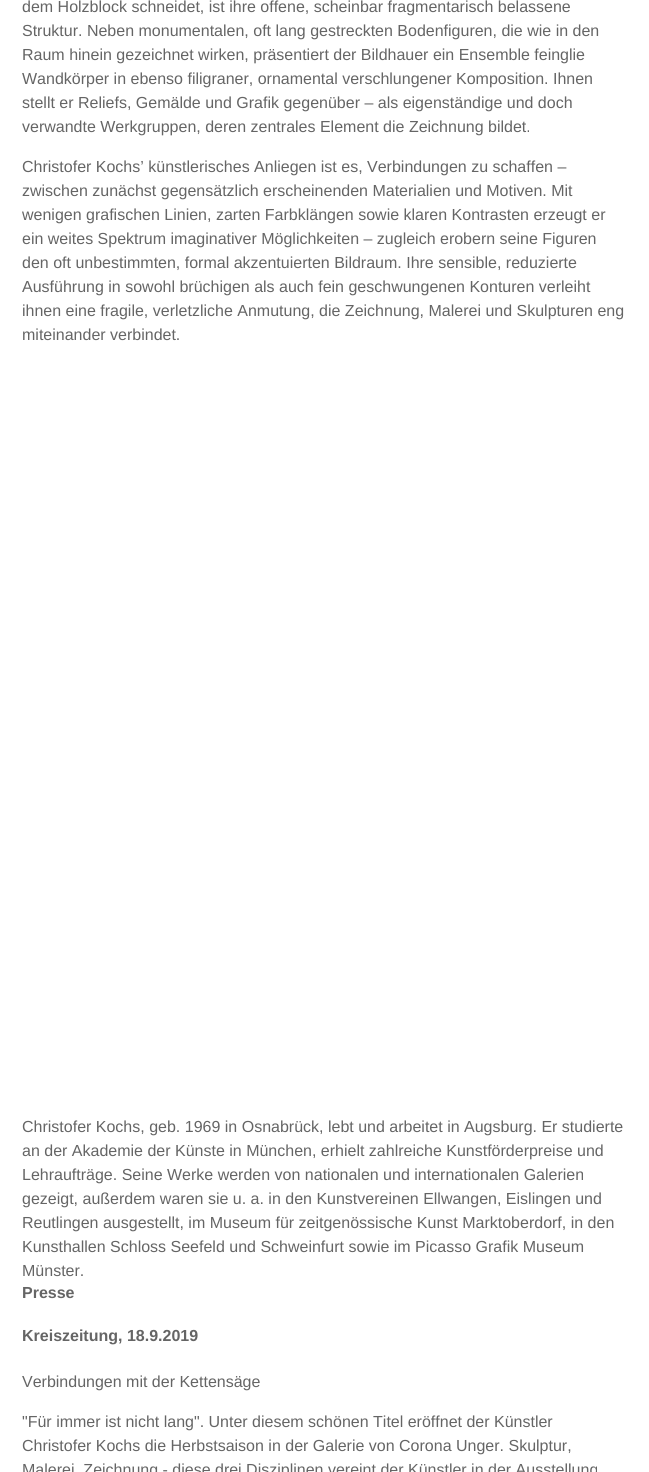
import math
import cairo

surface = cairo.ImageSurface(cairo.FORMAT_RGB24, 649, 1472)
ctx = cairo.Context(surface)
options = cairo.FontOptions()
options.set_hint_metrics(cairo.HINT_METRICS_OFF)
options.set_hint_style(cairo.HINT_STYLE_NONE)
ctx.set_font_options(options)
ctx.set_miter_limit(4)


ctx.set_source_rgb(1, 1, 1)
ctx.paint()
ctx.select_font_face("Liberation Sans")
ctx.set_font_size(16)
ctx.set_source_rgb(0.396, 0.396, 0.396)
ctx.move_to(22, 12)
ctx.show_text("dem Holzblock schneidet, ist ihre offene, scheinbar fragmentarisch belassene")
ctx.move_to(22, 36)
ctx.show_text("Struktur. Neben monumentalen, oft lang gestreckten Bodenfiguren, die wie in den")
ctx.move_to(22, 60)
ctx.show_text("Raum hinein gezeichnet wirken, präsentiert der Bildhauer ein Ensemble feinglie")
ctx.move_to(22, 84)
ctx.show_text("Wandkörper in ebenso filigraner, ornamental verschlungener Komposition. Ihnen")
ctx.move_to(22, 108)
ctx.show_text("stellt er Reliefs, Gemälde und Grafik gegenüber – als eigenständige und doch")
ctx.move_to(22, 132)
ctx.show_text("verwandte Werkgruppen, deren zentrales Element die Zeichnung bildet.")
ctx.move_to(22, 172)
ctx.show_text("Christofer Kochs’ künstlerisches Anliegen ist es, Verbindungen zu schaffen –")
ctx.move_to(22, 196)
ctx.show_text("zwischen zunächst gegensätzlich erscheinenden Materialien und Motiven. Mit")
ctx.move_to(22, 220)
ctx.show_text("wenigen grafischen Linien, zarten Farbklängen sowie klaren Kontrasten erzeugt er")
ctx.move_to(22, 244)
ctx.show_text("ein weites Spektrum imaginativer Möglichkeiten – zugleich erobern seine Figuren")
ctx.move_to(22, 268)
ctx.show_text("den oft unbestimmten, formal akzentuierten Bildraum. Ihre sensible, reduzierte")
ctx.move_to(22, 292)
ctx.show_text("Ausführung in sowohl brüchigen als auch fein geschwungenen Konturen verleiht")
ctx.move_to(22, 316)
ctx.show_text("ihnen eine fragile, verletzliche Anmutung, die Zeichnung, Malerei und Skulpturen eng")
ctx.move_to(22, 340)
ctx.show_text("miteinander verbindet.")
ctx.move_to(22, 1132)
ctx.show_text("Christofer Kochs, geb. 1969 in Osnabrück, lebt und arbeitet in Augsburg. Er studierte")
ctx.move_to(22, 1156)
ctx.show_text("an der Akademie der Künste in München, erhielt zahlreiche Kunstförderpreise und")
ctx.move_to(22, 1180)
ctx.show_text("Lehraufträge. Seine Werke werden von nationalen und internationalen Galerien")
ctx.move_to(22, 1204)
ctx.show_text("gezeigt, außerdem waren sie u. a. in den Kunstvereinen Ellwangen, Eislingen und")
ctx.move_to(22, 1228)
ctx.show_text("Reutlingen ausgestellt, im Museum für zeitgenössische Kunst Marktoberdorf, in den")
ctx.move_to(22, 1252)
ctx.show_text("Kunsthallen Schloss Seefeld und Schweinfurt sowie im Picasso Grafik Museum")
ctx.move_to(22, 1276)
ctx.show_text("Münster.")
ctx.select_font_face("Liberation Sans", cairo.FONT_SLANT_NORMAL, cairo.FONT_WEIGHT_BOLD)
ctx.move_to(22, 1298)
ctx.show_text("Presse")
ctx.move_to(22, 1341)
ctx.show_text("Kreiszeitung, 18.9.2019")
ctx.select_font_face("Liberation Sans")
ctx.move_to(22, 1387)
ctx.show_text("Verbindungen mit der Kettensäge")
ctx.move_to(22, 1427)
ctx.show_text("\"Für immer ist nicht lang\". Unter diesem schönen Titel eröffnet der Künstler")
ctx.move_to(22, 1451)
ctx.show_text("Christofer Kochs die Herbstsaison in der Galerie von Corona Unger. Skulptur,")
ctx.move_to(22, 1475)
ctx.show_text("Malerei, Zeichnung - diese drei Disziplinen vereint der Künstler in der Ausstellung")
surface.write_to_png("page.png")
